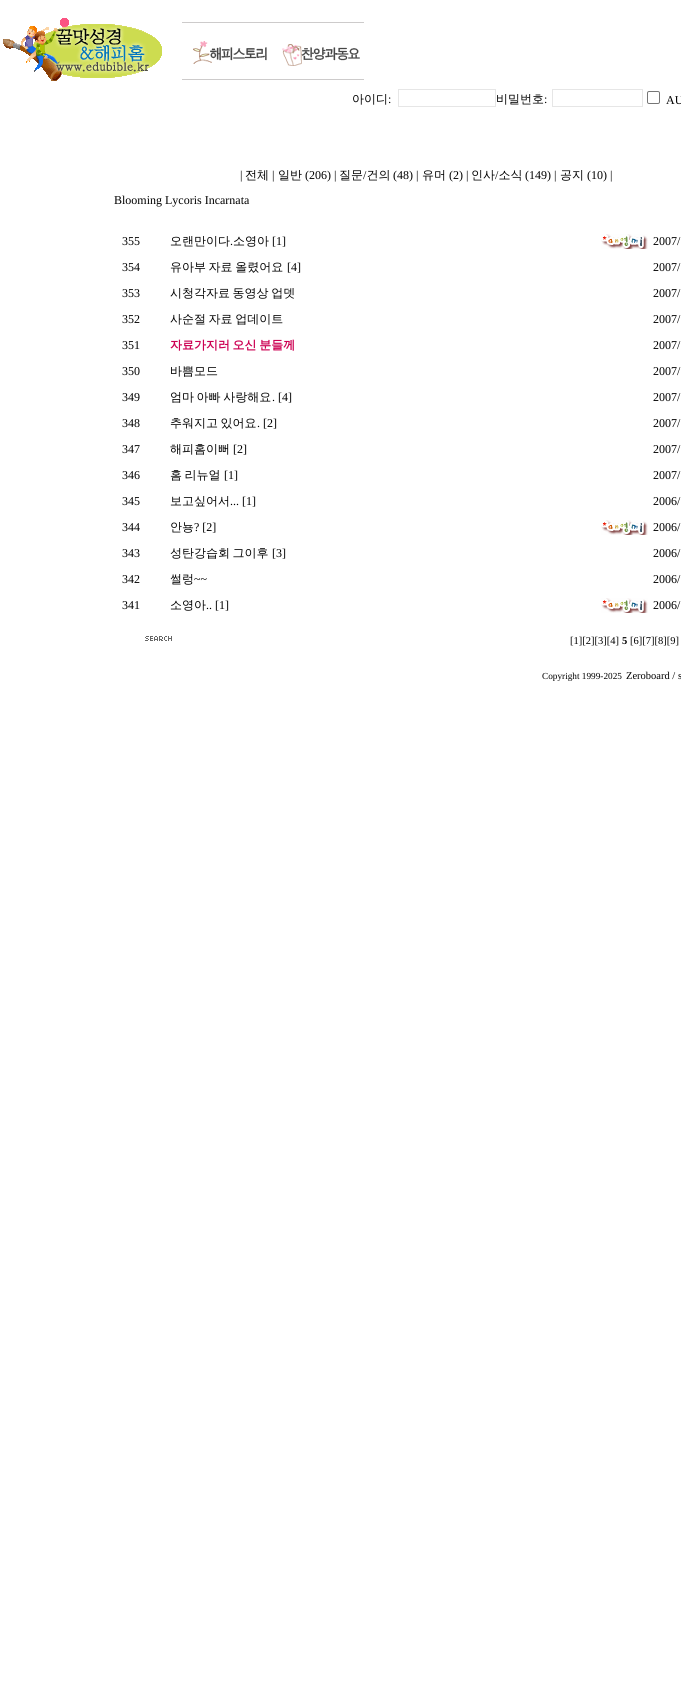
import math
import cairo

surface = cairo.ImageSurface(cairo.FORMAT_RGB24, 681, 1700)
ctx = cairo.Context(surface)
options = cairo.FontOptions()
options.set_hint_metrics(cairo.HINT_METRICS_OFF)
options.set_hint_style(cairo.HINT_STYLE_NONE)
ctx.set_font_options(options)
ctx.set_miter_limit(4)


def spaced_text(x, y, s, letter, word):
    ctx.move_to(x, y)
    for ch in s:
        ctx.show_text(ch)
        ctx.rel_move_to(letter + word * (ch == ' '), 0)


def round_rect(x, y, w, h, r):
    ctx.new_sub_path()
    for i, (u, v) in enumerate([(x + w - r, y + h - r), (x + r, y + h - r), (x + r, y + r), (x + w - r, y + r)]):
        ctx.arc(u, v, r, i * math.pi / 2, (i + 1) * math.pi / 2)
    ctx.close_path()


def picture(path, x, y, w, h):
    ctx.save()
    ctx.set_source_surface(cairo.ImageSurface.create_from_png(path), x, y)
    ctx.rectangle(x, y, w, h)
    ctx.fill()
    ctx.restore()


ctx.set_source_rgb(1, 1, 1)
ctx.paint()
picture("img1.png", 3, 18, 159, 63)
picture("img2.png", 182, 22, 91, 58)
picture("img3.png", 273, 22, 91, 58)
ctx.select_font_face("WenQuanYi Zen Hei Medium")
ctx.set_font_size(12)
ctx.set_source_rgb(0, 0, 0)
ctx.move_to(352, 103)
ctx.show_text("아이디")
ctx.select_font_face("Liberation Serif")
ctx.move_to(388, 103)
ctx.show_text(":")
ctx.rectangle(398.5, 89.5, 97, 17)
ctx.set_source_rgb(0.902, 0.902, 0.902)
ctx.set_line_width(1)
ctx.stroke()
ctx.select_font_face("WenQuanYi Zen Hei Medium")
ctx.set_source_rgb(0, 0, 0)
ctx.move_to(496, 103)
ctx.show_text("비밀번호")
ctx.select_font_face("Liberation Serif")
ctx.move_to(544, 103)
ctx.show_text(":")
ctx.rectangle(552.5, 89.5, 90, 17)
ctx.set_source_rgb(0.902, 0.902, 0.902)
ctx.stroke()
round_rect(647.5, 91.5, 12, 12, 1.5)
ctx.set_source_rgb(0.463, 0.463, 0.463)
ctx.stroke()
ctx.set_source_rgb(0, 0, 0)
ctx.move_to(666, 104)
ctx.show_text("AU")
ctx.move_to(240, 179)
ctx.show_text("|")
ctx.select_font_face("WenQuanYi Zen Hei Medium")
ctx.move_to(245, 179)
ctx.show_text("전체")
ctx.select_font_face("Liberation Serif")
ctx.move_to(272, 179)
ctx.show_text("|")
ctx.select_font_face("WenQuanYi Zen Hei Medium")
ctx.move_to(278, 179)
ctx.show_text("일반")
ctx.select_font_face("Liberation Serif")
ctx.move_to(305, 179)
ctx.show_text("(206) |")
ctx.select_font_face("WenQuanYi Zen Hei Medium")
ctx.move_to(339, 179)
ctx.show_text("질문 건의")
ctx.select_font_face("Liberation Serif")
ctx.move_to(393, 179)
ctx.show_text("(48) |")
ctx.select_font_face("WenQuanYi Zen Hei Medium")
ctx.move_to(422, 179)
ctx.show_text("유머")
ctx.select_font_face("Liberation Serif")
ctx.move_to(449, 179)
ctx.show_text("(2) |")
ctx.select_font_face("WenQuanYi Zen Hei Medium")
ctx.move_to(471, 179)
ctx.show_text("인사 소식")
ctx.select_font_face("Liberation Serif")
ctx.move_to(525, 179)
ctx.show_text("(149) |")
ctx.select_font_face("WenQuanYi Zen Hei Medium")
ctx.move_to(560, 179)
ctx.show_text("공지")
ctx.select_font_face("Liberation Serif")
ctx.move_to(587, 179)
ctx.show_text("(10) |")
ctx.move_to(363, 179)
ctx.show_text("/")
ctx.move_to(495, 179)
ctx.show_text("/")
ctx.move_to(114, 204)
ctx.show_text("Blooming Lycoris Incarnata")
ctx.move_to(122, 245)
ctx.show_text("355")
ctx.select_font_face("WenQuanYi Zen Hei Medium")
ctx.move_to(170, 245)
ctx.show_text("오랜만이다")
ctx.select_font_face("Liberation Serif")
ctx.move_to(230, 245)
ctx.show_text(".")
ctx.select_font_face("WenQuanYi Zen Hei Medium")
ctx.move_to(233, 245)
ctx.show_text("소영아")
ctx.select_font_face("Liberation Serif")
ctx.move_to(272, 245)
ctx.show_text("[1]")
picture("img4.png", 601, 234, 47, 15)
ctx.move_to(653, 245)
ctx.show_text("2007/")
ctx.move_to(122, 271)
ctx.show_text("354")
ctx.select_font_face("WenQuanYi Zen Hei Medium")
spaced_text(170, 271, "유아부 자료 올렸어요", 0, -1)
ctx.select_font_face("Liberation Serif")
ctx.move_to(287, 271)
ctx.show_text("[4]")
ctx.move_to(653, 271)
ctx.show_text("2007/")
ctx.move_to(122, 297)
ctx.show_text("353")
ctx.select_font_face("WenQuanYi Zen Hei Medium")
spaced_text(170, 297, "시청각자료 동영상 업뎃", 0, -1)
ctx.select_font_face("Liberation Serif")
ctx.move_to(653, 297)
ctx.show_text("2007/")
ctx.move_to(122, 323)
ctx.show_text("352")
ctx.select_font_face("WenQuanYi Zen Hei Medium")
spaced_text(170, 323, "사순절 자료 업데이트", 0, -1)
ctx.select_font_face("Liberation Serif")
ctx.move_to(653, 323)
ctx.show_text("2007/")
ctx.move_to(122, 349)
ctx.show_text("351")
ctx.select_font_face("WenQuanYi Zen Hei", cairo.FONT_SLANT_NORMAL, cairo.FONT_WEIGHT_BOLD)
ctx.set_source_rgb(0.8, 0, 0.322)
spaced_text(170, 349, "자료가지러 오신 분들께", 0, -1)
ctx.select_font_face("Liberation Serif")
ctx.set_source_rgb(0, 0, 0)
ctx.move_to(653, 349)
ctx.show_text("2007/")
ctx.move_to(122, 375)
ctx.show_text("350")
ctx.select_font_face("WenQuanYi Zen Hei Medium")
ctx.move_to(170, 375)
ctx.show_text("바쁨모드")
ctx.select_font_face("Liberation Serif")
ctx.move_to(653, 375)
ctx.show_text("2007/")
ctx.move_to(122, 401)
ctx.show_text("349")
ctx.select_font_face("WenQuanYi Zen Hei Medium")
spaced_text(170, 401, "엄마 아빠 사랑해요", 0, -1)
ctx.select_font_face("Liberation Serif")
ctx.move_to(272, 401)
ctx.show_text(". [4]")
ctx.move_to(653, 401)
ctx.show_text("2007/")
ctx.move_to(122, 427)
ctx.show_text("348")
ctx.select_font_face("WenQuanYi Zen Hei Medium")
spaced_text(170, 427, "추워지고 있어요", 0, -1)
ctx.select_font_face("Liberation Serif")
ctx.move_to(257, 427)
ctx.show_text(". [2]")
ctx.move_to(653, 427)
ctx.show_text("2007/")
ctx.move_to(122, 453)
ctx.show_text("347")
ctx.select_font_face("WenQuanYi Zen Hei Medium")
ctx.move_to(170, 453)
ctx.show_text("해피홈이뻐")
ctx.select_font_face("Liberation Serif")
ctx.move_to(233, 453)
ctx.show_text("[2]")
ctx.move_to(653, 453)
ctx.show_text("2007/")
ctx.move_to(122, 479)
ctx.show_text("346")
ctx.select_font_face("WenQuanYi Zen Hei Medium")
spaced_text(170, 479, "홈 리뉴얼", 0, -1)
ctx.select_font_face("Liberation Serif")
ctx.move_to(224, 479)
ctx.show_text("[1]")
ctx.move_to(653, 479)
ctx.show_text("2007/")
ctx.move_to(122, 505)
ctx.show_text("345")
ctx.select_font_face("WenQuanYi Zen Hei Medium")
ctx.move_to(170, 505)
ctx.show_text("보고싶어서")
ctx.select_font_face("Liberation Serif")
ctx.move_to(230, 505)
ctx.show_text("... [1]")
ctx.move_to(653, 505)
ctx.show_text("2006/")
ctx.move_to(122, 531)
ctx.show_text("344")
ctx.select_font_face("WenQuanYi Zen Hei Medium")
ctx.move_to(170, 531)
ctx.show_text("안뇽")
ctx.select_font_face("Liberation Serif")
ctx.move_to(194, 531)
ctx.show_text("? [2]")
picture("img4.png", 601, 520, 47, 15)
ctx.move_to(653, 531)
ctx.show_text("2006/")
ctx.move_to(122, 557)
ctx.show_text("343")
ctx.select_font_face("WenQuanYi Zen Hei Medium")
spaced_text(170, 557, "성탄강습회 그이후", 0, -1)
ctx.select_font_face("Liberation Serif")
ctx.move_to(272, 557)
ctx.show_text("[3]")
ctx.move_to(653, 557)
ctx.show_text("2006/")
ctx.move_to(122, 583)
ctx.show_text("342")
ctx.select_font_face("WenQuanYi Zen Hei Medium")
ctx.move_to(170, 583)
ctx.show_text("썰렁")
ctx.select_font_face("Liberation Serif")
ctx.move_to(194, 583)
ctx.show_text("~~")
ctx.move_to(653, 583)
ctx.show_text("2006/")
ctx.move_to(122, 609)
ctx.show_text("341")
ctx.select_font_face("WenQuanYi Zen Hei Medium")
ctx.move_to(170, 609)
ctx.show_text("소영아")
ctx.select_font_face("Liberation Serif")
ctx.move_to(206, 609)
ctx.show_text(".. [1]")
picture("img4.png", 601, 598, 47, 15)
ctx.move_to(653, 609)
ctx.show_text("2006/")
picture("img5.png", 145, 636, 27, 5)
ctx.set_font_size(10.5)
ctx.move_to(570, 644)
ctx.show_text("[1][2][3][4]")
ctx.select_font_face("Liberation Serif", cairo.FONT_SLANT_NORMAL, cairo.FONT_WEIGHT_BOLD)
ctx.move_to(622, 644)
ctx.show_text("5")
ctx.select_font_face("Liberation Serif")
ctx.move_to(630, 644)
ctx.show_text("[6][7][8][9]")
ctx.set_font_size(9.25)
ctx.move_to(542, 679)
ctx.show_text("Copyright 1999-2025")
ctx.set_font_size(10.5)
ctx.move_to(626, 679)
ctx.show_text("Zeroboard / s")
surface.write_to_png("page.png")
